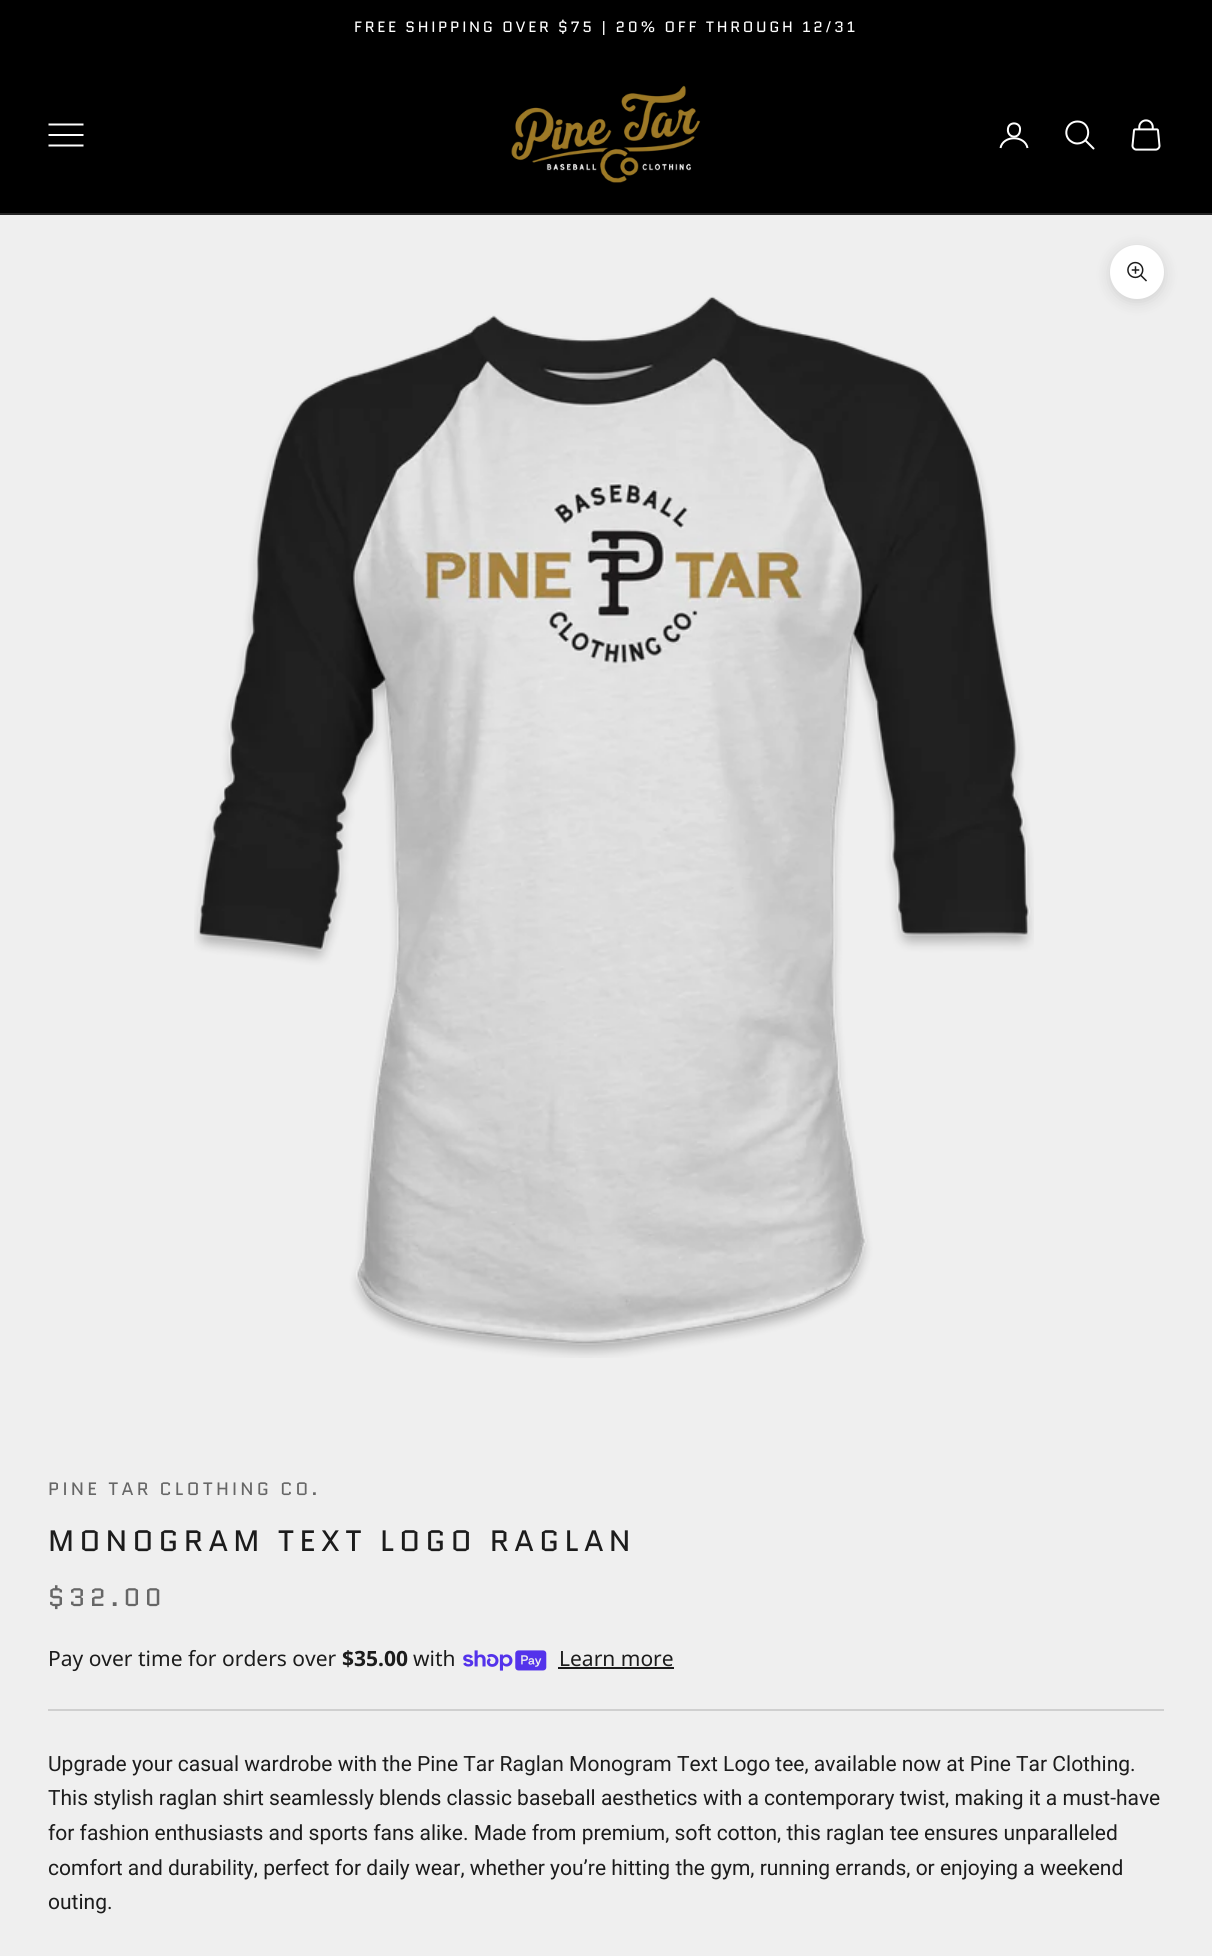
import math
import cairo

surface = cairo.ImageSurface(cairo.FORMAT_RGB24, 1212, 1956)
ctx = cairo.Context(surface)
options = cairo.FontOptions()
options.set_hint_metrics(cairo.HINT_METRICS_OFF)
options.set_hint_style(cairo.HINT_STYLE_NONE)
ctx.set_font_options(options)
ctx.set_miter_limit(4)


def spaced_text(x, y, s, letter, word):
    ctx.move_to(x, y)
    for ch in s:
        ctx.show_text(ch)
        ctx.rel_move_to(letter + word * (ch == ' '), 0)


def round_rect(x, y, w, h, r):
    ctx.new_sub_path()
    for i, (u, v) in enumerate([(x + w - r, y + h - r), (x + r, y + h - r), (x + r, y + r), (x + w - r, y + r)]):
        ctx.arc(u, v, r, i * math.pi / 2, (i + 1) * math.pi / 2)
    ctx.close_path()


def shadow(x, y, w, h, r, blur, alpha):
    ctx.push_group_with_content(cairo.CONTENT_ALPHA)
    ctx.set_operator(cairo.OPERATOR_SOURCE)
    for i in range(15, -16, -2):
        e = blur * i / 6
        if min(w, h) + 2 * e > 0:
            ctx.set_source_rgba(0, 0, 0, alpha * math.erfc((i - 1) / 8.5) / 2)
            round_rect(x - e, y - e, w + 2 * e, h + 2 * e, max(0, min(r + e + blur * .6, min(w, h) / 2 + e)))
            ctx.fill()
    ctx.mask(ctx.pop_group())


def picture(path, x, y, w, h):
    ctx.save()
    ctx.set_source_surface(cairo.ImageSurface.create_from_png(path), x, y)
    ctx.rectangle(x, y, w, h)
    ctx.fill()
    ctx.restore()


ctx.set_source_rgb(0.937, 0.937, 0.937)
ctx.paint()
ctx.set_source_rgb(0, 0, 0)
ctx.rectangle(0, 0, 1212, 213)
ctx.fill()
ctx.select_font_face("Quantico")
ctx.set_font_size(15)
ctx.set_source_rgb(1, 1, 1)
spaced_text(354, 32, "FREE SHIPPING OVER $75 | 20% OFF THROUGH 12/31", 2.7, 0)
ctx.set_source_rgb(0.149, 0.149, 0.149)
ctx.rectangle(0, 213, 1212, 2)
ctx.fill()
ctx.new_path()
ctx.move_to(49.5, 145.5)
ctx.line_to(82.5, 145.5)
ctx.move_to(49.5, 135)
ctx.line_to(82.5, 135)
ctx.move_to(49.5, 124.5)
ctx.line_to(82.5, 124.5)
ctx.set_source_rgb(1, 1, 1)
ctx.set_line_cap(cairo.LINE_CAP_SQUARE)
ctx.stroke()
picture("img1.png", 511, 85, 190, 98)
ctx.new_path()
ctx.move_to(1020, 130)
ctx.curve_to(1019.5, 140, 1006.5, 138, 1008, 128.5)
ctx.curve_to(1009, 121, 1021, 122, 1020, 130)
ctx.close_path()
ctx.set_line_cap(cairo.LINE_CAP_ROUND)
ctx.set_line_join(cairo.LINE_JOIN_ROUND)
ctx.stroke()
ctx.new_path()
ctx.move_to(1000.5, 148)
ctx.curve_to(1003, 135, 1025, 135, 1027.5, 148)
ctx.set_line_cap(cairo.LINE_CAP_BUTT)
ctx.set_line_join(cairo.LINE_JOIN_MITER)
ctx.stroke()
ctx.new_path()
ctx.move_to(1077.5, 121.5)
ctx.curve_to(1066, 121.5, 1062, 136.5, 1072, 142)
ctx.curve_to(1073.5, 143, 1075.5, 143.5, 1077.5, 143.5)
ctx.curve_to(1092, 143, 1091.5, 121.5, 1077.5, 121.5)
ctx.close_path()
ctx.stroke()
ctx.new_path()
ctx.move_to(1086, 141)
ctx.line_to(1093.5, 148.5)
ctx.set_line_cap(cairo.LINE_CAP_ROUND)
ctx.stroke()
picture("img2.png", 1131, 119, 30, 32)
ctx.set_source_rgb(0.11, 0.11, 0.11)
shadow(1110, 248, 54, 54, 27, 7.5, 0.15)
ctx.set_source_rgb(1, 1, 1)
ctx.arc(1137, 272, 27, 0, 2 * math.pi)
ctx.fill()
picture("img3.png", 1127, 261, 20, 21)
picture("img4.png", 194, 296, 840, 1062)
ctx.set_font_size(18)
ctx.set_source_rgb(0.4, 0.4, 0.4)
spaced_text(48, 1495, "PINE TAR CLOTHING CO.", 3.25, 0)
ctx.set_font_size(29.5)
ctx.set_source_rgb(0.11, 0.11, 0.11)
spaced_text(48, 1551, "MONOGRAM TEXT LOGO RAGLAN", 5.3, 0)
ctx.set_font_size(25.25)
ctx.set_source_rgb(0.4, 0.4, 0.4)
spaced_text(48, 1606, "$32.00", 4.5, 0)
ctx.select_font_face("Noto Sans")
ctx.set_font_size(21)
ctx.set_source_rgb(0.11, 0.11, 0.11)
ctx.move_to(48, 1666)
ctx.show_text("Pay over time for orders over")
ctx.select_font_face("Noto Sans", cairo.FONT_SLANT_NORMAL, cairo.FONT_WEIGHT_BOLD)
ctx.move_to(342, 1666)
ctx.show_text("$35.00")
ctx.select_font_face("Noto Sans")
ctx.move_to(413, 1666)
ctx.show_text("with")
picture("img5.png", 463, 1650, 84, 21)
ctx.move_to(559, 1666)
ctx.show_text("Learn more")
ctx.rectangle(558, 1667, 116, 2)
ctx.fill()
ctx.set_source_rgb(0.812, 0.812, 0.812)
ctx.rectangle(48, 1709, 1116, 2)
ctx.fill()
ctx.select_font_face("Roboto")
ctx.set_source_rgb(0.11, 0.11, 0.11)
ctx.move_to(48, 1771)
ctx.show_text("Upgrade your casual wardrobe with the Pine Tar Raglan Monogram Text Logo tee, available now at Pine Tar Clothing.")
ctx.move_to(48, 1805)
ctx.show_text("This stylish raglan shirt seamlessly blends classic baseball aesthetics with a contemporary twist, making it a must-have")
ctx.move_to(48, 1840)
ctx.show_text("for fashion enthusiasts and sports fans alike. Made from premium, soft cotton, this raglan tee ensures unparalleled")
ctx.move_to(48, 1875)
ctx.show_text("comfort and durability, perfect for daily wear, whether you’re hitting the gym, running errands, or enjoying a weekend")
ctx.move_to(48, 1909)
ctx.show_text("outing.")
surface.write_to_png("page.png")
